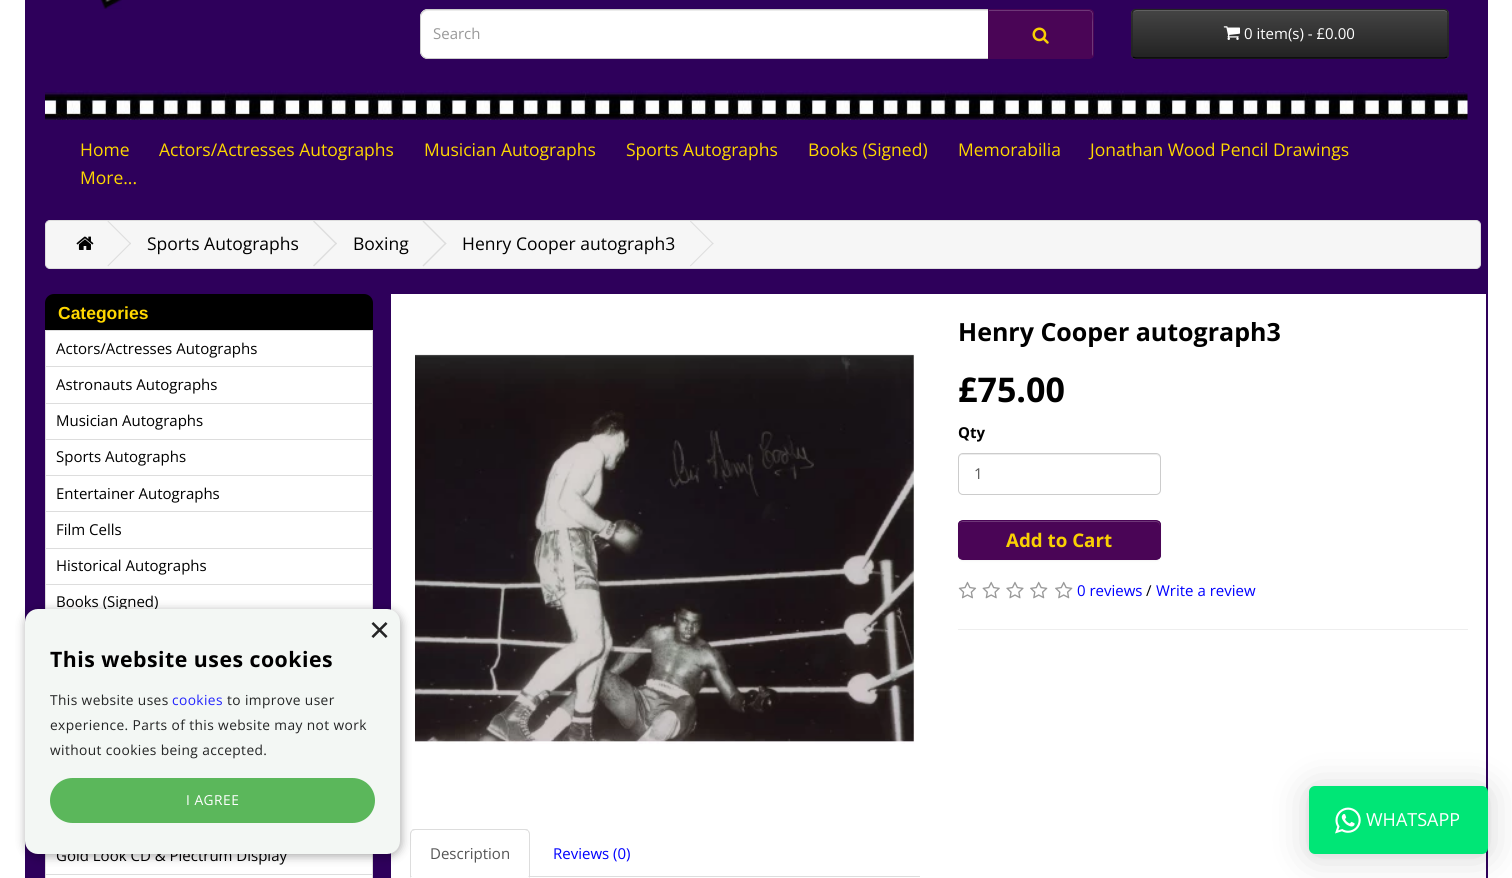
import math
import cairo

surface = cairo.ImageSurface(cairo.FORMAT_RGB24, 1512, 878)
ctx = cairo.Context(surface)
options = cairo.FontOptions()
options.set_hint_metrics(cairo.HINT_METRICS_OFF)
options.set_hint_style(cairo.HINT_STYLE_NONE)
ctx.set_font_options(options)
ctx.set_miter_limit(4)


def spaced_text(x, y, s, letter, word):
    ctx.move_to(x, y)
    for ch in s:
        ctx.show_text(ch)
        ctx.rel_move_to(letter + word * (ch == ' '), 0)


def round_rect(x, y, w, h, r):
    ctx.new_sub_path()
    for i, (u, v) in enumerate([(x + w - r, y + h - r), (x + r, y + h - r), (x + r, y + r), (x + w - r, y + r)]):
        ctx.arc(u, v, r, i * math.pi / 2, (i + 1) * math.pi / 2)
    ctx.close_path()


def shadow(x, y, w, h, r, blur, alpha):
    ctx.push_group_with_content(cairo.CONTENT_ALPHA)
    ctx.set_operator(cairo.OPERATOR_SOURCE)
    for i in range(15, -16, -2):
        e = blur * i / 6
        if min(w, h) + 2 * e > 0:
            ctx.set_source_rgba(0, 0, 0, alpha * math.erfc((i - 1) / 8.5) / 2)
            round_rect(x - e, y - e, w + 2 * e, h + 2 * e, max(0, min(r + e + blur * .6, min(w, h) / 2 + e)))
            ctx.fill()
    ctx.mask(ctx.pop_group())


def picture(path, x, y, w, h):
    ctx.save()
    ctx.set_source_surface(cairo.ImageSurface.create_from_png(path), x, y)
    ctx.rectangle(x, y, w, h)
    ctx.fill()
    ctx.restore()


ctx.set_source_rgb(1, 1, 1)
ctx.paint()
ctx.set_source_rgb(0.18, 0, 0.357)
ctx.rectangle(25, 0, 1463, 878)
ctx.fill()
picture("img1.png", 100, 0, 22, 9)
ctx.set_source_rgb(1, 1, 1)
ctx.new_path()
ctx.move_to(428, 9)
ctx.line_to(989, 9)
ctx.line_to(989, 59)
ctx.line_to(428, 59)
ctx.curve_to(423.5, 59, 420, 55.5, 420, 51)
ctx.line_to(420, 17)
ctx.curve_to(420, 12.5, 423.5, 9, 428, 9)
ctx.close_path()
ctx.fill()
ctx.set_source_rgb(0.925, 0.925, 0.925)
ctx.new_path()
ctx.move_to(428, 11)
ctx.line_to(988, 11)
ctx.line_to(988, 10)
ctx.line_to(427, 10)
ctx.curve_to(422, 10, 421, 14, 421, 18)
ctx.curve_to(421, 14, 424, 11, 428, 11)
ctx.close_path()
ctx.fill()
ctx.new_path()
ctx.move_to(428, 9.5)
ctx.line_to(988.5, 9.5)
ctx.line_to(988.5, 58.5)
ctx.line_to(428, 58.5)
ctx.curve_to(424, 58.5, 420.5, 55, 420.5, 51)
ctx.line_to(420.5, 17)
ctx.curve_to(420.5, 13, 424, 9.5, 428, 9.5)
ctx.close_path()
ctx.set_source_rgb(0.8, 0.8, 0.8)
ctx.set_line_width(1)
ctx.stroke()
ctx.select_font_face("Open Sans")
ctx.set_font_size(15)
ctx.set_source_rgb(0.6, 0.6, 0.6)
ctx.move_to(433, 39)
ctx.show_text("Search")
ctx.save()
ctx.new_path()
ctx.move_to(988, 9)
ctx.line_to(1089, 9)
ctx.curve_to(1092, 9, 1094, 11, 1094, 14)
ctx.line_to(1094, 54)
ctx.curve_to(1094, 57, 1092, 59, 1089, 59)
ctx.line_to(988, 59)
ctx.close_path()
ctx.clip()
ctx.set_source_rgb(0.29, 0.02, 0.337)
ctx.rectangle(989, 10, 105, 48)
ctx.fill()
ctx.restore()
ctx.set_source_rgb(0.431, 0.216, 0.471)
ctx.new_path()
ctx.move_to(989, 11)
ctx.line_to(1089, 11)
ctx.curve_to(1094, 11, 1092, 20, 1092, 22)
ctx.line_to(1092, 57)
ctx.curve_to(1092, 56, 1093, 55, 1093, 54)
ctx.line_to(1093, 14)
ctx.curve_to(1093, 12, 1091, 10, 1089, 10)
ctx.line_to(989, 10)
ctx.close_path()
ctx.fill()
ctx.new_path()
ctx.move_to(988.5, 9.5)
ctx.line_to(1089, 9.5)
ctx.curve_to(1091.5, 9.5, 1093.5, 11.5, 1093.5, 14)
ctx.line_to(1093.5, 54)
ctx.curve_to(1093.5, 56.5, 1091.5, 58.5, 1089, 58.5)
ctx.line_to(988.5, 58.5)
ctx.close_path()
ctx.set_source_rgb(0.29, 0.02, 0.337)
ctx.stroke()
picture("img2.png", 1032, 27, 17, 17)
ctx.set_source_rgb(0.212, 0.212, 0.212)
round_rect(1131, 9, 318, 50, 5)
ctx.fill()
ctx.save()
round_rect(1131, 9, 318, 50, 5)
ctx.clip()
gradient = cairo.LinearGradient(1290, 10, 1290, 58)
gradient.add_color_stop_rgba(0, 0.267, 0.267, 0.267, 1)
gradient.add_color_stop_rgba(1, 0.133, 0.133, 0.133, 1)
ctx.set_source(gradient)
ctx.rectangle(1131, 10, 318, 48)
ctx.fill()
ctx.restore()
ctx.set_source_rgb(0.412, 0.412, 0.412)
ctx.new_path()
ctx.move_to(1136, 11)
ctx.line_to(1444, 11)
ctx.curve_to(1446, 11, 1448, 13, 1448, 15)
ctx.line_to(1448, 14)
ctx.curve_to(1448, 12, 1446, 10, 1444, 10)
ctx.line_to(1137, 10)
ctx.curve_to(1136, 10, 1134, 11, 1134, 12)
ctx.close_path()
ctx.fill()
ctx.new_path()
ctx.move_to(1447, 57)
ctx.curve_to(1446, 57.5, 1445, 58, 1444, 58)
ctx.line_to(1136, 58)
ctx.curve_to(1135, 58, 1134, 57.5, 1133, 57)
ctx.set_source_rgb(0, 0, 0)
ctx.set_line_width(1.2)
ctx.stroke()
ctx.new_path()
ctx.move_to(1133, 57)
ctx.curve_to(1132.5, 56, 1132, 55, 1132, 54)
ctx.line_to(1132, 14)
ctx.curve_to(1132, 12.5, 1132.5, 11.5, 1133, 10.5)
ctx.curve_to(1134, 10, 1135, 9.5, 1136, 9.5)
ctx.line_to(1444, 9.5)
ctx.curve_to(1445, 9.5, 1446, 10, 1447, 10.5)
ctx.curve_to(1447.5, 11.5, 1448, 12.5, 1448, 14)
ctx.line_to(1448, 54)
ctx.curve_to(1448, 55, 1447.5, 56, 1447, 57)
ctx.set_source_rgb(0.133, 0.133, 0.133)
ctx.stroke()
picture("img3.png", 1223, 26, 17, 14)
ctx.set_source_rgb(1, 1, 1)
ctx.move_to(1244, 39)
ctx.show_text("0 item(s) - £0.00")
picture("img4.png", 45, 90, 1423, 30)
ctx.set_font_size(17.5)
ctx.set_source_rgb(1, 0.843, 0)
ctx.move_to(80, 156)
ctx.show_text("Home")
ctx.move_to(159, 156)
ctx.show_text("Actors/Actresses Autographs")
ctx.move_to(424, 156)
ctx.show_text("Musician Autographs")
ctx.move_to(626, 156)
ctx.show_text("Sports Autographs")
ctx.move_to(808, 156)
ctx.show_text("Books (Signed)")
ctx.move_to(958, 156)
ctx.show_text("Memorabilia")
ctx.move_to(1090, 156)
ctx.show_text("Jonathan Wood Pencil Drawings")
ctx.move_to(80, 184)
ctx.show_text("More...")
ctx.set_source_rgb(0.961, 0.961, 0.961)
round_rect(45.5, 220.5, 1435, 48, 4.5)
ctx.fill_preserve()
ctx.set_source_rgb(0.867, 0.867, 0.867)
ctx.set_line_width(1)
ctx.stroke()
picture("img5.png", 76, 236, 18, 14)
ctx.new_path()
ctx.move_to(107.5, 221.5)
ctx.line_to(108, 220.5)
ctx.line_to(131, 243.5)
ctx.line_to(130.5, 244.5)
ctx.close_path()
ctx.fill()
ctx.new_path()
ctx.move_to(107.5, 265.5)
ctx.line_to(130.5, 242.5)
ctx.line_to(131, 243.5)
ctx.line_to(108, 266.5)
ctx.close_path()
ctx.fill()
ctx.set_source_rgb(0, 0, 0)
ctx.move_to(147, 250)
ctx.show_text("Sports Autographs")
ctx.set_source_rgb(0.867, 0.867, 0.867)
ctx.new_path()
ctx.move_to(313, 221.5)
ctx.line_to(314, 220.5)
ctx.line_to(337, 243.5)
ctx.line_to(336, 244.5)
ctx.close_path()
ctx.fill()
ctx.new_path()
ctx.move_to(313, 265.5)
ctx.line_to(336, 242.5)
ctx.line_to(337, 243.5)
ctx.line_to(314, 266.5)
ctx.close_path()
ctx.fill()
ctx.set_source_rgb(0, 0, 0)
ctx.move_to(353, 250)
ctx.show_text("Boxing")
ctx.set_source_rgb(0.867, 0.867, 0.867)
ctx.new_path()
ctx.move_to(422.5, 221.5)
ctx.line_to(423.5, 220.5)
ctx.line_to(446.5, 243.5)
ctx.line_to(445.5, 244.5)
ctx.close_path()
ctx.fill()
ctx.new_path()
ctx.move_to(422.5, 265.5)
ctx.line_to(445.5, 242.5)
ctx.line_to(446.5, 243.5)
ctx.line_to(423.5, 266.5)
ctx.close_path()
ctx.fill()
ctx.set_source_rgb(0, 0, 0)
ctx.move_to(462, 250)
ctx.show_text("Henry Cooper autograph3")
ctx.set_source_rgb(0.867, 0.867, 0.867)
ctx.new_path()
ctx.move_to(690, 221.5)
ctx.line_to(690.5, 220.5)
ctx.line_to(713.5, 243.5)
ctx.line_to(713, 244.5)
ctx.close_path()
ctx.fill()
ctx.new_path()
ctx.move_to(690, 265.5)
ctx.line_to(713, 242.5)
ctx.line_to(713.5, 243.5)
ctx.line_to(690.5, 266.5)
ctx.close_path()
ctx.fill()
ctx.set_source_rgb(0, 0, 0)
ctx.new_path()
ctx.move_to(54, 294)
ctx.line_to(364, 294)
ctx.curve_to(369, 294, 373, 298, 373, 303)
ctx.line_to(373, 330)
ctx.line_to(45, 330)
ctx.line_to(45, 303)
ctx.curve_to(45, 298, 49, 294, 54, 294)
ctx.close_path()
ctx.fill()
ctx.select_font_face("Liberation Sans", cairo.FONT_SLANT_NORMAL, cairo.FONT_WEIGHT_BOLD)
ctx.set_source_rgb(1, 0.843, 0)
ctx.move_to(58, 319)
ctx.show_text("Categories")
ctx.set_source_rgb(1, 1, 1)
ctx.rectangle(46, 331, 326, 35)
ctx.fill()
ctx.rectangle(45.5, 330.5, 327, 37)
ctx.set_source_rgb(0.867, 0.867, 0.867)
ctx.stroke()
ctx.select_font_face("Open Sans")
ctx.set_font_size(15)
ctx.set_source_rgb(0, 0, 0)
ctx.move_to(56, 354)
ctx.show_text("Actors/Actresses Autographs")
ctx.set_source_rgb(1, 1, 1)
ctx.rectangle(45.5, 366.5, 327, 37)
ctx.fill_preserve()
ctx.set_source_rgb(0.867, 0.867, 0.867)
ctx.stroke()
ctx.set_source_rgb(0, 0, 0)
ctx.move_to(56, 390)
ctx.show_text("Astronauts Autographs")
ctx.set_source_rgb(1, 1, 1)
ctx.rectangle(45.5, 403.5, 327, 36)
ctx.fill_preserve()
ctx.set_source_rgb(0.867, 0.867, 0.867)
ctx.stroke()
ctx.set_source_rgb(0, 0, 0)
ctx.move_to(56, 426)
ctx.show_text("Musician Autographs")
ctx.set_source_rgb(1, 1, 1)
ctx.rectangle(45.5, 439.5, 327, 36)
ctx.fill_preserve()
ctx.set_source_rgb(0.867, 0.867, 0.867)
ctx.stroke()
ctx.set_source_rgb(0, 0, 0)
ctx.move_to(56, 462)
ctx.show_text("Sports Autographs")
ctx.set_source_rgb(1, 1, 1)
ctx.rectangle(46, 476, 326, 35)
ctx.fill()
ctx.rectangle(45.5, 475.5, 327, 37)
ctx.set_source_rgb(0.867, 0.867, 0.867)
ctx.stroke()
ctx.set_source_rgb(0, 0, 0)
ctx.move_to(56, 499)
ctx.show_text("Entertainer Autographs")
ctx.set_source_rgb(1, 1, 1)
ctx.rectangle(45.5, 511.5, 327, 37)
ctx.fill_preserve()
ctx.set_source_rgb(0.867, 0.867, 0.867)
ctx.stroke()
ctx.set_source_rgb(0, 0, 0)
ctx.move_to(56, 535)
ctx.show_text("Film Cells")
ctx.set_source_rgb(1, 1, 1)
ctx.rectangle(45.5, 548.5, 327, 36)
ctx.fill_preserve()
ctx.set_source_rgb(0.867, 0.867, 0.867)
ctx.stroke()
ctx.set_source_rgb(0, 0, 0)
ctx.move_to(56, 571)
ctx.show_text("Historical Autographs")
ctx.set_source_rgb(1, 1, 1)
ctx.rectangle(46, 585, 326, 24)
ctx.fill()
ctx.rectangle(45.5, 584.5, 327, 36)
ctx.set_source_rgb(0.867, 0.867, 0.867)
ctx.stroke()
ctx.set_source_rgb(0, 0, 0)
ctx.move_to(56, 607)
ctx.show_text("Books (Signed)")
ctx.set_source_rgb(1, 1, 1)
ctx.rectangle(46, 854, 326, 20)
ctx.fill()
ctx.rectangle(45.5, 838.5, 327, 36)
ctx.set_source_rgb(0.867, 0.867, 0.867)
ctx.stroke()
ctx.set_source_rgb(0, 0, 0)
ctx.move_to(56, 861)
ctx.show_text("Gold Look CD & Plectrum Display")
ctx.set_source_rgb(1, 1, 1)
ctx.rectangle(45.5, 874.5, 327, 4)
ctx.fill_preserve()
ctx.set_source_rgb(0.867, 0.867, 0.867)
ctx.stroke()
ctx.set_source_rgb(1, 1, 1)
ctx.rectangle(391, 294, 1095, 584)
ctx.fill()
ctx.select_font_face("Open Sans", cairo.FONT_SLANT_NORMAL, cairo.FONT_WEIGHT_BOLD)
ctx.set_font_size(25)
ctx.set_source_rgb(0, 0, 0)
ctx.move_to(958, 341)
ctx.show_text("Henry Cooper autograph3")
ctx.set_font_size(34)
ctx.move_to(958, 402)
ctx.show_text("£75.00")
ctx.set_font_size(15)
ctx.move_to(958, 438)
ctx.show_text("Qty")
ctx.set_source_rgb(0.925, 0.925, 0.925)
ctx.new_path()
ctx.move_to(962, 455)
ctx.line_to(1156, 455)
ctx.curve_to(1158, 455, 1160, 457, 1160, 459)
ctx.line_to(1160, 458)
ctx.curve_to(1160, 456, 1158, 454, 1156, 454)
ctx.line_to(963, 454)
ctx.curve_to(961, 454, 959, 456, 959, 458)
ctx.line_to(959, 459)
ctx.curve_to(959, 457, 960, 455, 962, 455)
ctx.close_path()
ctx.fill()
round_rect(958.5, 453.5, 202, 41, 4.5)
ctx.set_source_rgb(0.8, 0.8, 0.8)
ctx.stroke()
ctx.select_font_face("Open Sans")
ctx.set_source_rgb(0.333, 0.333, 0.333)
ctx.move_to(974, 479)
ctx.show_text("1")
ctx.set_source_rgb(0, 0, 0)
shadow(958, 521, 203, 40, 5, 1, 0.05)
ctx.save()
round_rect(958, 520, 203, 40, 5)
ctx.clip()
ctx.set_source_rgb(0.29, 0.02, 0.337)
ctx.rectangle(958, 521, 203, 38)
ctx.fill()
ctx.restore()
ctx.set_source_rgb(0.431, 0.216, 0.471)
ctx.new_path()
ctx.move_to(962, 522)
ctx.line_to(1156, 522)
ctx.curve_to(1158, 522, 1160, 524, 1160, 526)
ctx.line_to(1160, 525)
ctx.curve_to(1160, 523, 1158, 521, 1156, 521)
ctx.line_to(963, 521)
ctx.curve_to(961, 521, 959, 523, 959, 525)
ctx.line_to(959, 526)
ctx.curve_to(959, 524, 960, 522, 962, 522)
ctx.close_path()
ctx.fill()
round_rect(958.5, 520.5, 202, 39, 4.5)
ctx.set_source_rgb(0.29, 0.02, 0.337)
ctx.stroke()
ctx.select_font_face("Open Sans", cairo.FONT_SLANT_NORMAL, cairo.FONT_WEIGHT_BOLD)
ctx.set_font_size(18.75)
ctx.set_source_rgb(0.973, 0.816, 0.012)
ctx.move_to(1006, 547)
ctx.show_text("Add to Cart")
picture("img6.png", 958, 581, 19, 18)
picture("img7.png", 982, 581, 18, 18)
picture("img8.png", 1006, 581, 18, 18)
picture("img9.png", 1030, 581, 18, 18)
picture("img9.png", 1055, 581, 18, 18)
ctx.select_font_face("Open Sans")
ctx.set_font_size(15)
ctx.set_source_rgb(0, 0, 1)
ctx.move_to(1077, 596)
ctx.show_text("0 reviews")
ctx.set_source_rgb(0, 0, 0)
ctx.move_to(1146, 596)
ctx.show_text("/")
ctx.set_source_rgb(0, 0, 1)
ctx.move_to(1156, 596)
ctx.show_text("Write a review")
ctx.set_source_rgb(0.933, 0.933, 0.933)
ctx.rectangle(958, 629, 510, 1)
ctx.fill()
picture("img10.png", 415, 354, 500, 390)
ctx.set_source_rgb(0.867, 0.867, 0.867)
ctx.rectangle(530, 876, 390, 1)
ctx.fill()
ctx.new_path()
ctx.move_to(415, 829)
ctx.curve_to(414, 829, 412, 829, 412, 830)
ctx.line_to(412, 831)
ctx.line_to(415, 830)
ctx.line_to(525, 830)
ctx.line_to(528, 831)
ctx.line_to(528, 830)
ctx.curve_to(528, 829, 526, 829, 525, 829)
ctx.close_path()
ctx.fill()
ctx.new_path()
ctx.move_to(528, 830)
ctx.curve_to(529, 831, 530, 832, 530, 834)
ctx.line_to(530, 878)
ctx.line_to(528, 876)
ctx.line_to(529, 876)
ctx.line_to(529, 834)
ctx.curve_to(529, 833, 528, 832, 528, 831)
ctx.close_path()
ctx.fill()
ctx.new_path()
ctx.move_to(410, 878)
ctx.line_to(412, 876)
ctx.line_to(411, 876)
ctx.line_to(411, 834)
ctx.curve_to(411, 833, 412, 832, 412, 831)
ctx.line_to(412, 830)
ctx.curve_to(411, 831, 410, 832, 410, 834)
ctx.close_path()
ctx.fill()
ctx.set_source_rgb(0.333, 0.333, 0.333)
ctx.move_to(430, 859)
ctx.show_text("Description")
ctx.set_source_rgb(0, 0, 1)
ctx.move_to(553, 859)
ctx.show_text("Reviews (0)")
ctx.set_source_rgb(0, 0, 0)
shadow(26, 611, 375, 245, 13, 5, 0.35)
ctx.set_source_rgb(0.953, 0.965, 0.957)
round_rect(25, 609, 375, 245, 13)
ctx.fill()
ctx.select_font_face("Liberation Sans")
ctx.set_font_size(36)
ctx.set_source_rgb(0.141, 0.145, 0.145)
ctx.move_to(369, 642)
ctx.show_text("×")
ctx.select_font_face("Open Sans", cairo.FONT_SLANT_NORMAL, cairo.FONT_WEIGHT_BOLD)
ctx.set_font_size(21.25)
ctx.set_source_rgb(0, 0, 0)
spaced_text(50, 667, "This website uses cookies", 0.5, 0)
ctx.select_font_face("Open Sans")
ctx.set_font_size(13.75)
ctx.set_source_rgb(0.141, 0.145, 0.145)
spaced_text(50, 705, "This website uses", 0.4, 0)
ctx.set_source_rgb(0.141, 0.145, 0.992)
spaced_text(172, 705, "cookies", 0.4, 0)
ctx.set_source_rgb(0.141, 0.145, 0.145)
spaced_text(227, 705, "to improve user", 0.4, 0)
spaced_text(50, 730, "experience. Parts of this website may not work", 0.4, 0)
spaced_text(50, 755, "without cookies being accepted.", 0.4, 0)
ctx.set_source_rgb(0.357, 0.718, 0.357)
round_rect(50, 778, 325, 45, 22.5)
ctx.fill()
ctx.set_source_rgb(1, 1, 1)
spaced_text(186, 805, "I AGREE", 0.5, 0)
ctx.set_source_rgb(0, 0, 0)
shadow(1309, 789, 179, 67, 6, 20, 0.16)
shadow(1309, 788, 179, 67, 6, 4, 0.06)
ctx.set_source_rgb(0, 0.902, 0.463)
round_rect(1309, 786, 179, 68, 6)
ctx.fill()
picture("img11.png", 1335, 807, 26, 27)
ctx.set_font_size(18)
ctx.set_source_rgb(1, 1, 1)
ctx.move_to(1366, 826)
ctx.show_text("WHATSAPP")
surface.write_to_png("page.png")
